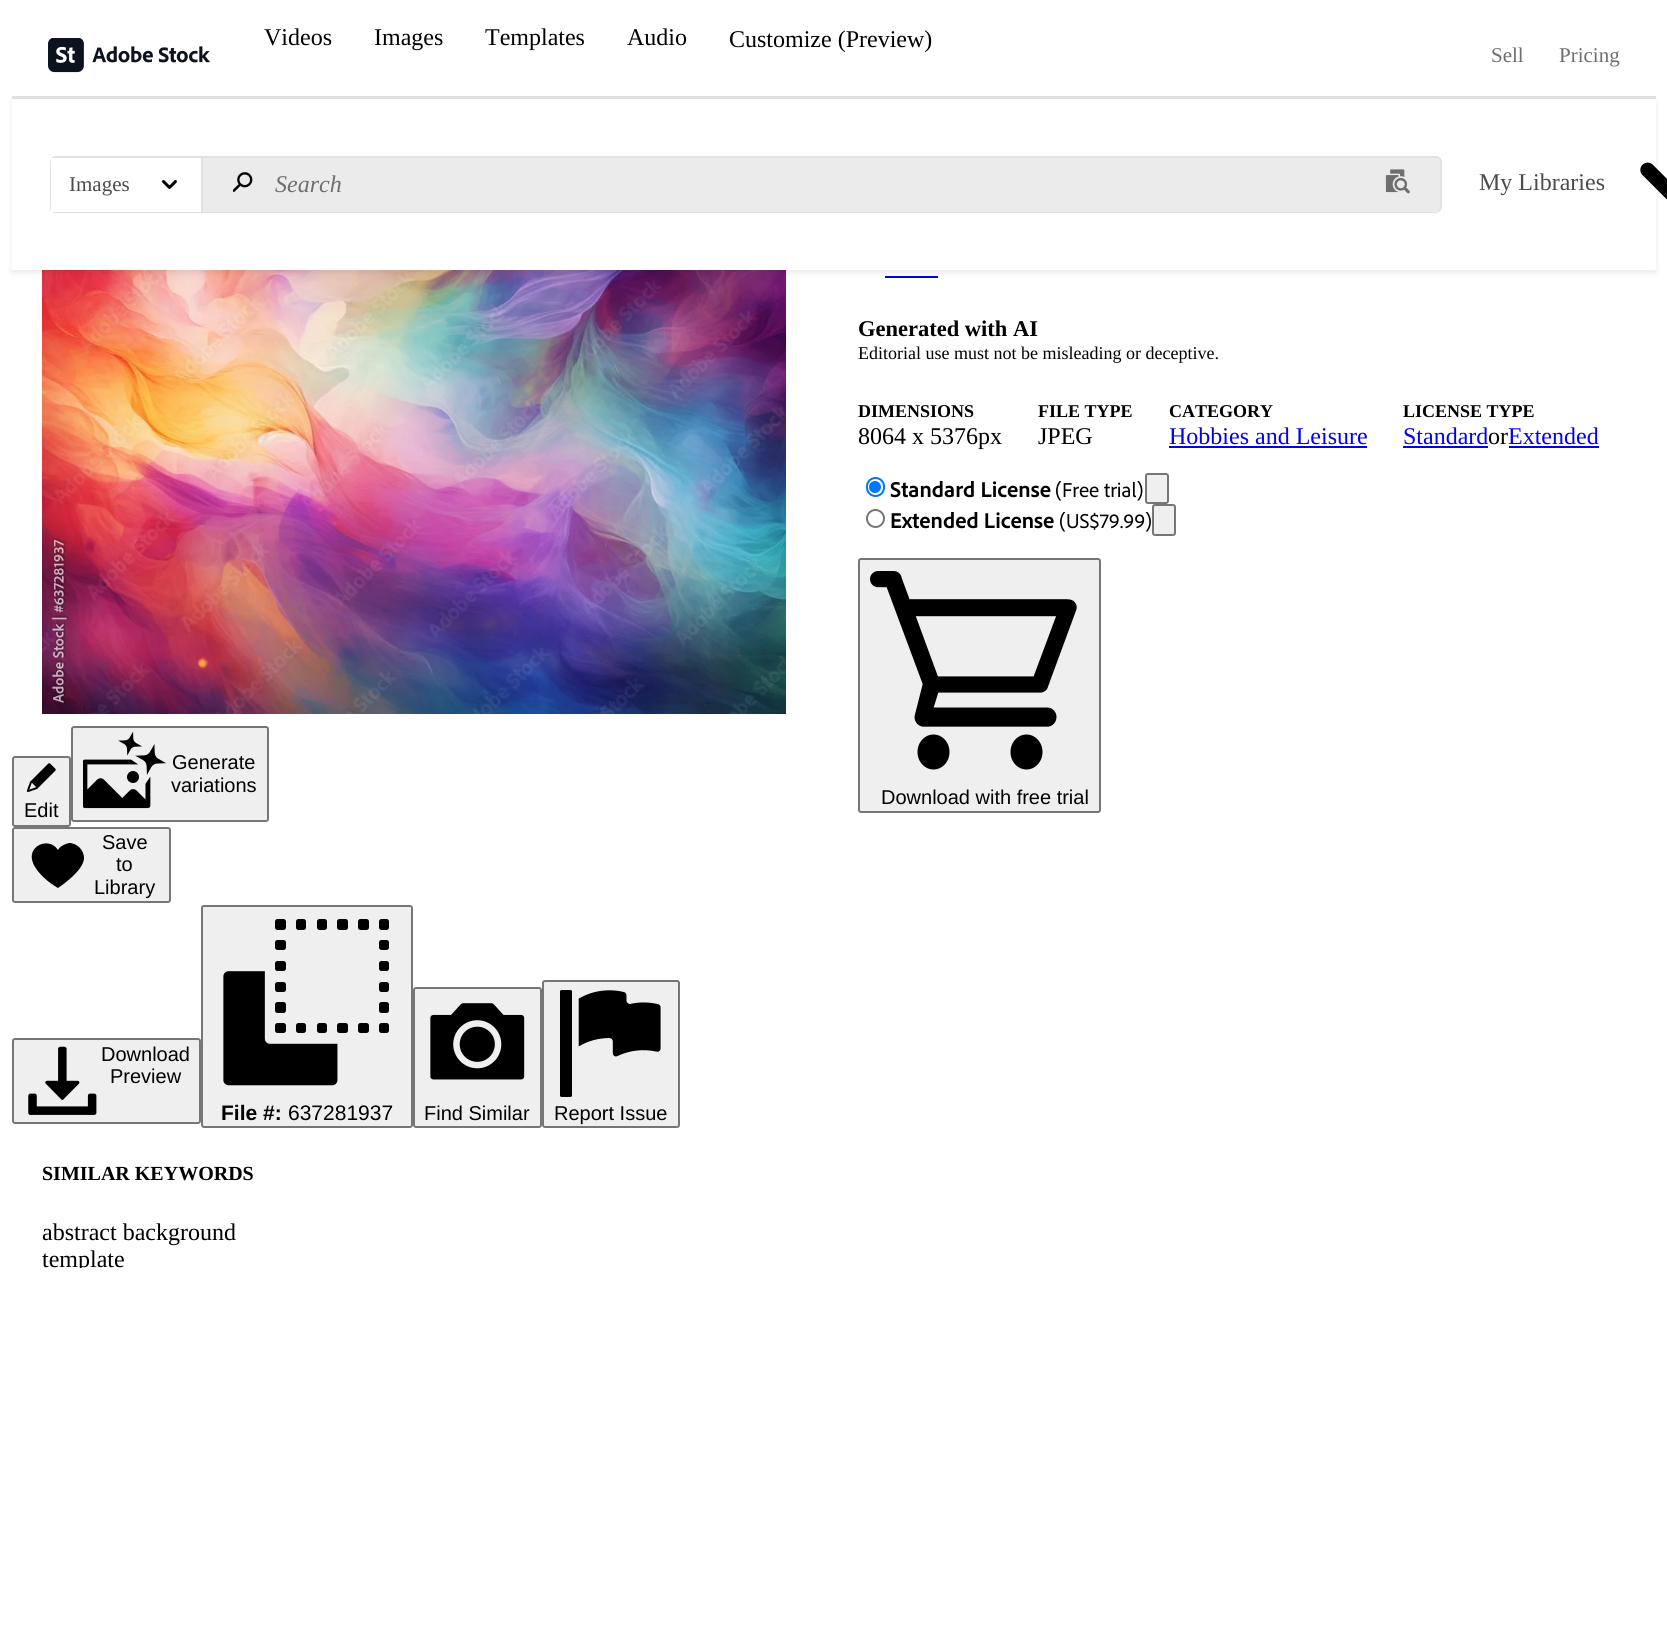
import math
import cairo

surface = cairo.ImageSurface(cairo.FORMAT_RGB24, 1667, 1633)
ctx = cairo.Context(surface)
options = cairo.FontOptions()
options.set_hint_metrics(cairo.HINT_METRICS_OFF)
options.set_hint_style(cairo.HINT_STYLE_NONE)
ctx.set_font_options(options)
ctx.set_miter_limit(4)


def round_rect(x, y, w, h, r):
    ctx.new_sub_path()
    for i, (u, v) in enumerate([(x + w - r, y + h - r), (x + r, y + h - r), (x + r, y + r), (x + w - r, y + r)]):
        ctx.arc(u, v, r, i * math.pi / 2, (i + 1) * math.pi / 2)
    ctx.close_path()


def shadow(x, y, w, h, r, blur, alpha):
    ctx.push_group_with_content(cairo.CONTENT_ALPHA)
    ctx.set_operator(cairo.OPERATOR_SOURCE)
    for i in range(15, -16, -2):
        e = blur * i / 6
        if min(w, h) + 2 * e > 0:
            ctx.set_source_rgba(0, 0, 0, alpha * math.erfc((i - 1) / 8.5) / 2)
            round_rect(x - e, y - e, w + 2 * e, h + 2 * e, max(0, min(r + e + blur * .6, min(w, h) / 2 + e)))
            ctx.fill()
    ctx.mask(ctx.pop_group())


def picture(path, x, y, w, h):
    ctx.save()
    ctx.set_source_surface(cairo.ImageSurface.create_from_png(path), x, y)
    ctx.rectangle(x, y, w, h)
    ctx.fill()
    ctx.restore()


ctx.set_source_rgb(1, 1, 1)
ctx.paint()
ctx.set_source_rgb(0, 0, 0.933)
ctx.rectangle(885, 276, 53, 2)
ctx.fill()
picture("img7.png", 42, 270, 744, 444)
ctx.set_source_rgb(0.204, 0.204, 0.204)
shadow(12, 102, 1644, 171, 0, 3, 0.1)
ctx.set_source_rgb(0.882, 0.882, 0.882)
ctx.rectangle(12, 96, 1644, 3)
ctx.fill()
picture("img1.png", 48, 38, 162, 35)
ctx.select_font_face("Liberation Serif")
ctx.set_font_size(24)
ctx.set_source_rgb(0, 0, 0)
ctx.move_to(264, 45)
ctx.show_text("Videos")
ctx.move_to(374, 45)
ctx.show_text("Images")
ctx.move_to(485, 45)
ctx.show_text("Templates")
ctx.move_to(627, 45)
ctx.show_text("Audio")
ctx.move_to(729, 47)
ctx.show_text("Customize (Preview)")
ctx.set_font_size(21)
ctx.set_source_rgb(0.431, 0.431, 0.431)
ctx.move_to(1491, 62)
ctx.show_text("Sell")
ctx.move_to(1559, 62)
ctx.show_text("Pricing")
ctx.set_source_rgb(1, 1, 1)
ctx.rectangle(12, 99, 1644, 171)
ctx.fill()
ctx.new_path()
ctx.move_to(56, 157)
ctx.line_to(202, 157)
ctx.line_to(202, 212)
ctx.line_to(56, 212)
ctx.curve_to(53, 212, 51, 210, 51, 207)
ctx.line_to(51, 162)
ctx.curve_to(51, 159, 53, 157, 56, 157)
ctx.close_path()
ctx.set_source_rgb(0.882, 0.882, 0.882)
ctx.stroke()
ctx.set_source_rgb(1, 1, 1)
ctx.rectangle(51, 158, 150, 54)
ctx.fill()
ctx.set_source_rgb(0.294, 0.294, 0.294)
ctx.move_to(69, 191)
ctx.show_text("Images")
picture("img2.png", 162, 180, 15, 9)
ctx.set_source_rgb(0.918, 0.918, 0.918)
ctx.new_path()
ctx.move_to(203, 158)
ctx.line_to(1435, 158)
ctx.curve_to(1438, 158, 1440, 160, 1440, 163)
ctx.line_to(1440, 207)
ctx.curve_to(1440, 210, 1438, 212, 1435, 212)
ctx.line_to(203, 212)
ctx.close_path()
ctx.fill()
ctx.set_source_rgb(0.882, 0.882, 0.882)
ctx.set_fill_rule(cairo.FILL_RULE_EVEN_ODD)
ctx.new_path()
ctx.move_to(202, 156)
ctx.line_to(1436, 156)
ctx.curve_to(1439, 156, 1442, 159, 1442, 162)
ctx.line_to(1442, 207)
ctx.curve_to(1442, 210, 1439, 213, 1436, 213)
ctx.line_to(202, 213)
ctx.close_path()
ctx.move_to(202, 158)
ctx.line_to(1436, 158)
ctx.curve_to(1438, 158, 1440, 160, 1440, 162)
ctx.line_to(1440, 207)
ctx.curve_to(1440, 209, 1438, 212, 1436, 212)
ctx.line_to(202, 212)
ctx.close_path()
ctx.fill()
picture("img3.png", 233, 172, 20, 20)
ctx.select_font_face("Liberation Serif", cairo.FONT_SLANT_ITALIC)
ctx.set_font_size(24)
ctx.set_source_rgb(0.431, 0.431, 0.431)
ctx.move_to(275, 192)
ctx.show_text("Search")
picture("img4.png", 1385, 169, 25, 25)
ctx.select_font_face("Liberation Serif")
ctx.set_source_rgb(0.294, 0.294, 0.294)
ctx.move_to(1479, 190)
ctx.show_text("My Libraries")
picture("img5.png", 1640, 162, 27, 38)
ctx.select_font_face("Liberation Serif", cairo.FONT_SLANT_NORMAL, cairo.FONT_WEIGHT_BOLD)
ctx.set_font_size(22.5)
ctx.set_source_rgb(0, 0, 0)
ctx.move_to(858, 336)
ctx.show_text("Generated with AI")
ctx.select_font_face("Liberation Serif")
ctx.set_font_size(18)
ctx.move_to(858, 359)
ctx.show_text("Editorial use must not be misleading or deceptive.")
ctx.select_font_face("Liberation Serif", cairo.FONT_SLANT_NORMAL, cairo.FONT_WEIGHT_BOLD)
ctx.move_to(858, 417)
ctx.show_text("DIMENSIONS")
ctx.select_font_face("Liberation Serif")
ctx.set_font_size(24)
ctx.move_to(858, 444)
ctx.show_text("8064 x 5376px")
ctx.select_font_face("Liberation Serif", cairo.FONT_SLANT_NORMAL, cairo.FONT_WEIGHT_BOLD)
ctx.set_font_size(18)
ctx.move_to(1038, 417)
ctx.show_text("FILE TYPE")
ctx.select_font_face("Liberation Serif")
ctx.set_font_size(24)
ctx.move_to(1038, 444)
ctx.show_text("JPEG")
ctx.select_font_face("Liberation Serif", cairo.FONT_SLANT_NORMAL, cairo.FONT_WEIGHT_BOLD)
ctx.set_font_size(18)
ctx.move_to(1169, 417)
ctx.show_text("CATEGORY")
ctx.select_font_face("Liberation Serif")
ctx.set_font_size(24)
ctx.set_source_rgb(0, 0, 0.933)
ctx.move_to(1169, 444)
ctx.show_text("Hobbies and Leisure")
ctx.rectangle(1169, 446, 198, 2)
ctx.fill()
ctx.select_font_face("Liberation Serif", cairo.FONT_SLANT_NORMAL, cairo.FONT_WEIGHT_BOLD)
ctx.set_font_size(18)
ctx.set_source_rgb(0, 0, 0)
ctx.move_to(1403, 417)
ctx.show_text("LICENSE TYPE")
ctx.select_font_face("Liberation Serif")
ctx.set_font_size(24)
ctx.set_source_rgb(0, 0, 0.933)
ctx.move_to(1403, 444)
ctx.show_text("Standard")
ctx.set_source_rgb(0, 0, 0)
ctx.move_to(1488, 444)
ctx.show_text("or")
ctx.set_source_rgb(0, 0, 0.933)
ctx.rectangle(1403, 446, 85, 2)
ctx.fill()
ctx.rectangle(1509, 446, 90, 2)
ctx.fill()
ctx.move_to(1508, 444)
ctx.show_text("Extended")
round_rect(867, 478, 17, 18, 8.5)
ctx.set_source_rgb(0, 0.459, 1)
ctx.stroke()
ctx.arc(875, 487, 6, 0, 2 * math.pi)
ctx.fill()
ctx.select_font_face("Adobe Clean", cairo.FONT_SLANT_NORMAL, cairo.FONT_WEIGHT_BOLD)
ctx.set_font_size(22.5)
ctx.set_source_rgb(0, 0, 0)
ctx.move_to(890, 497)
ctx.show_text("Standard License")
ctx.select_font_face("Adobe Clean")
ctx.set_font_size(21)
ctx.move_to(1055, 497)
ctx.show_text("(Free trial)")
ctx.set_source_rgb(0.937, 0.937, 0.937)
round_rect(1146, 474, 22, 29, 2)
ctx.fill_preserve()
ctx.set_source_rgb(0.463, 0.463, 0.463)
ctx.stroke()
ctx.arc(875.5, 518.5, 8.5, 0, 2 * math.pi)
ctx.stroke()
ctx.select_font_face("Adobe Clean", cairo.FONT_SLANT_NORMAL, cairo.FONT_WEIGHT_BOLD)
ctx.set_font_size(22.5)
ctx.set_source_rgb(0, 0, 0)
ctx.move_to(890, 528)
ctx.show_text("Extended License")
ctx.select_font_face("Adobe Clean")
ctx.set_font_size(21)
ctx.move_to(1059, 528)
ctx.show_text("(US$79.99)")
ctx.set_source_rgb(0.937, 0.937, 0.937)
round_rect(1153, 505, 22, 30, 2)
ctx.fill_preserve()
ctx.set_source_rgb(0.463, 0.463, 0.463)
ctx.stroke()
ctx.set_source_rgb(0.937, 0.937, 0.937)
round_rect(859, 559, 241, 253, 2)
ctx.fill_preserve()
ctx.set_source_rgb(0.463, 0.463, 0.463)
ctx.stroke()
picture("img6.png", 870, 571, 207, 199)
ctx.select_font_face("Liberation Sans")
ctx.set_font_size(20)
ctx.set_source_rgb(0, 0, 0)
ctx.move_to(881, 804)
ctx.show_text("Download with free trial")
ctx.set_source_rgb(0.937, 0.937, 0.937)
round_rect(72, 727, 196, 94, 2)
ctx.fill_preserve()
ctx.set_source_rgb(0.463, 0.463, 0.463)
ctx.stroke()
picture("img8.png", 83, 731, 83, 78)
ctx.set_source_rgb(0, 0, 0)
ctx.move_to(172, 769)
ctx.show_text("Generate")
ctx.move_to(171, 792)
ctx.show_text("variations")
ctx.set_source_rgb(0.937, 0.937, 0.937)
round_rect(13, 757, 57, 69, 2)
ctx.fill_preserve()
ctx.set_source_rgb(0.463, 0.463, 0.463)
ctx.stroke()
picture("img9.png", 26, 763, 30, 29)
ctx.set_source_rgb(0, 0, 0)
ctx.move_to(24, 817)
ctx.show_text("Edit")
ctx.set_source_rgb(0.937, 0.937, 0.937)
round_rect(13, 828, 157, 74, 2)
ctx.fill_preserve()
ctx.set_source_rgb(0.463, 0.463, 0.463)
ctx.stroke()
ctx.set_source_rgb(0, 0, 0)
ctx.new_path()
ctx.move_to(69, 843)
ctx.curve_to(65, 844, 60, 846, 58, 850)
ctx.curve_to(49, 836, 26, 846, 33, 863)
ctx.curve_to(37, 873, 49, 883, 58, 888)
ctx.curve_to(58, 888, 84, 871, 84, 858)
ctx.curve_to(84, 850, 77, 843, 69, 843)
ctx.close_path()
ctx.fill()
ctx.move_to(102, 849)
ctx.show_text("Save")
ctx.move_to(116, 871)
ctx.show_text("to")
ctx.move_to(94, 894)
ctx.show_text("Library")
ctx.set_source_rgb(0.937, 0.937, 0.937)
round_rect(13, 1039, 187, 84, 2)
ctx.fill_preserve()
ctx.set_source_rgb(0.463, 0.463, 0.463)
ctx.stroke()
picture("img10.png", 28, 1046, 69, 69)
ctx.set_source_rgb(0, 0, 0)
ctx.move_to(101, 1061)
ctx.show_text("Download")
ctx.move_to(110, 1083)
ctx.show_text("Preview")
ctx.set_source_rgb(0.937, 0.937, 0.937)
round_rect(202, 906, 210, 221, 2)
ctx.fill_preserve()
ctx.set_source_rgb(0.463, 0.463, 0.463)
ctx.stroke()
picture("img11.png", 223, 919, 166, 167)
ctx.select_font_face("Liberation Sans", cairo.FONT_SLANT_NORMAL, cairo.FONT_WEIGHT_BOLD)
ctx.set_font_size(21)
ctx.set_source_rgb(0, 0, 0)
ctx.move_to(221, 1120)
ctx.show_text("File #:")
ctx.select_font_face("Liberation Sans")
ctx.move_to(288, 1120)
ctx.show_text("637281937")
ctx.set_source_rgb(0.937, 0.937, 0.937)
round_rect(414, 988, 127, 139, 2)
ctx.fill_preserve()
ctx.set_source_rgb(0.463, 0.463, 0.463)
ctx.stroke()
picture("img12.png", 430, 1003, 95, 77)
ctx.set_font_size(20)
ctx.set_source_rgb(0, 0, 0)
ctx.move_to(424, 1120)
ctx.show_text("Find Similar")
ctx.set_source_rgb(0.937, 0.937, 0.937)
round_rect(543, 981, 136, 146, 2)
ctx.fill_preserve()
ctx.set_source_rgb(0.463, 0.463, 0.463)
ctx.stroke()
picture("img13.png", 560, 990, 101, 107)
ctx.set_source_rgb(0, 0, 0)
ctx.move_to(554, 1120)
ctx.show_text("Report Issue")
ctx.select_font_face("Liberation Serif", cairo.FONT_SLANT_NORMAL, cairo.FONT_WEIGHT_BOLD)
ctx.move_to(42, 1180)
ctx.show_text("SIMILAR KEYWORDS")
ctx.select_font_face("Liberation Serif")
ctx.set_font_size(24)
ctx.move_to(42, 1240)
ctx.show_text("abstract background")
ctx.save()
ctx.set_fill_rule(cairo.FILL_RULE_WINDING)
ctx.rectangle(42, 1220, 1584, 48)
ctx.clip()
ctx.move_to(42, 1267)
ctx.show_text("template")
ctx.restore()
surface.write_to_png("page.png")
